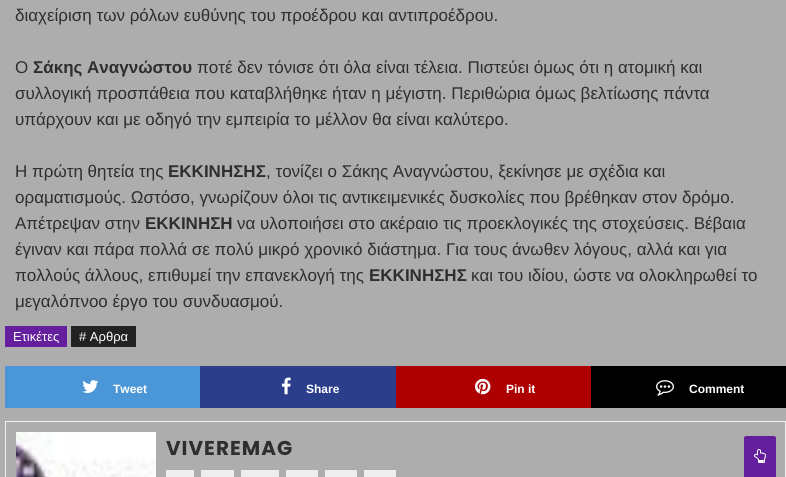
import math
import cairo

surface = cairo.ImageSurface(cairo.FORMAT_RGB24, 786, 477)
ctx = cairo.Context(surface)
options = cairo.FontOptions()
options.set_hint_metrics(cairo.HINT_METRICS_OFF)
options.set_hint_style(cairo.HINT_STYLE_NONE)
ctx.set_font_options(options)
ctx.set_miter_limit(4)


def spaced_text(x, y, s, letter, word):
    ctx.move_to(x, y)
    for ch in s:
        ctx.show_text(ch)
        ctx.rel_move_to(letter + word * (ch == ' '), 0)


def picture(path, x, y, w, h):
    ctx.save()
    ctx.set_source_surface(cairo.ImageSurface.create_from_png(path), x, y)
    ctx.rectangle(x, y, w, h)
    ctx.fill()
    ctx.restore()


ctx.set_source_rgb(0.678, 0.678, 0.678)
ctx.paint()
ctx.select_font_face("Liberation Sans")
ctx.set_font_size(17)
ctx.set_source_rgb(0.18, 0.18, 0.18)
ctx.move_to(15, 21)
ctx.show_text("διαχείριση των ρόλων ευθύνης του προέδρου και αντιπροέδρου.")
ctx.move_to(15, 73)
ctx.show_text("Ο")
ctx.select_font_face("Liberation Sans", cairo.FONT_SLANT_NORMAL, cairo.FONT_WEIGHT_BOLD)
ctx.move_to(33, 73)
ctx.show_text("Σάκης Αναγνώστου")
ctx.select_font_face("Liberation Sans")
ctx.move_to(197, 73)
ctx.show_text("ποτέ δεν τόνισε ότι όλα είναι τέλεια. Πιστεύει όμως ότι η ατομική και")
ctx.move_to(15, 99)
ctx.show_text("συλλογική προσπάθεια που καταβλήθηκε ήταν η μέγιστη. Περιθώρια όμως βελτίωσης πάντα")
ctx.move_to(15, 125)
ctx.show_text("υπάρχουν και με οδηγό την εμπειρία το μέλλον θα είναι καλύτερο.")
ctx.move_to(15, 177)
ctx.show_text("Η πρώτη θητεία της")
ctx.select_font_face("Liberation Sans", cairo.FONT_SLANT_NORMAL, cairo.FONT_WEIGHT_BOLD)
ctx.move_to(168, 177)
ctx.show_text("ΕΚΚΙΝΗΣΗΣ")
ctx.select_font_face("Liberation Sans")
ctx.move_to(266, 177)
ctx.show_text(", τονίζει ο Σάκης Αναγνώστου, ξεκίνησε με σχέδια και")
ctx.move_to(15, 203)
ctx.show_text("οραματισμούς. Ωστόσο, γνωρίζουν όλοι τις αντικειμενικές δυσκολίες που βρέθηκαν στον δρόμο.")
ctx.move_to(15, 229)
ctx.show_text("Απέτρεψαν στην")
ctx.select_font_face("Liberation Sans", cairo.FONT_SLANT_NORMAL, cairo.FONT_WEIGHT_BOLD)
ctx.move_to(145, 229)
ctx.show_text("ΕΚΚΙΝΗΣΗ")
ctx.select_font_face("Liberation Sans")
ctx.move_to(237, 229)
ctx.show_text("να υλοποιήσει στο ακέραιο τις προεκλογικές της στοχεύσεις. Βέβαια")
ctx.move_to(15, 255)
ctx.show_text("έγιναν και πάρα πολλά σε πολύ μικρό χρονικό διάστημα. Για τους άνωθεν λόγους, αλλά και για")
ctx.move_to(15, 281)
ctx.show_text("πολλούς άλλους, επιθυμεί την επανεκλογή της")
ctx.select_font_face("Liberation Sans", cairo.FONT_SLANT_NORMAL, cairo.FONT_WEIGHT_BOLD)
ctx.move_to(369, 281)
ctx.show_text("ΕΚΚΙΝΗΣΗΣ")
ctx.select_font_face("Liberation Sans")
ctx.move_to(471, 281)
ctx.show_text("και του ιδίου, ώστε να ολοκληρωθεί το")
ctx.move_to(15, 307)
ctx.show_text("μεγαλόπνοο έργο του συνδυασμού.")
ctx.set_source_rgb(0.388, 0.122, 0.612)
ctx.rectangle(5, 326, 62, 21)
ctx.fill()
ctx.set_font_size(13)
ctx.set_source_rgb(1, 1, 1)
ctx.move_to(13, 341)
ctx.show_text("Ετικέτες")
ctx.set_source_rgb(0.133, 0.133, 0.133)
ctx.rectangle(71, 326, 65, 21)
ctx.fill()
ctx.set_source_rgb(1, 1, 1)
ctx.move_to(79, 341)
ctx.show_text("# Αρθρα")
ctx.set_source_rgb(0.294, 0.588, 0.843)
ctx.rectangle(5, 366, 195, 42)
ctx.fill()
picture("img1.png", 82, 380, 17, 13)
ctx.select_font_face("Liberation Sans", cairo.FONT_SLANT_NORMAL, cairo.FONT_WEIGHT_BOLD)
ctx.set_font_size(12)
ctx.set_source_rgb(1, 1, 1)
ctx.move_to(113, 393)
ctx.show_text("Tweet")
ctx.set_source_rgb(0.165, 0.243, 0.549)
ctx.rectangle(200, 366, 196, 42)
ctx.fill()
picture("img2.png", 281, 377, 10, 18)
ctx.set_source_rgb(1, 1, 1)
ctx.move_to(306, 393)
ctx.show_text("Share")
ctx.set_source_rgb(0.682, 0, 0)
ctx.rectangle(396, 366, 195, 42)
ctx.fill()
picture("img3.png", 475, 378, 16, 17)
ctx.set_source_rgb(1, 1, 1)
ctx.move_to(506, 393)
ctx.show_text("Pin it")
ctx.set_source_rgb(0, 0, 0)
ctx.rectangle(591, 366, 195, 42)
ctx.fill()
picture("img4.png", 656, 380, 18, 16)
ctx.set_source_rgb(1, 1, 1)
ctx.move_to(689, 393)
ctx.show_text("Comment")
ctx.rectangle(5.5, 421.5, 780, 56)
ctx.set_source_rgb(0.949, 0.949, 0.949)
ctx.set_line_width(1)
ctx.stroke()
picture("img5.png", 16, 432, 140, 45)
ctx.select_font_face("Poppins", cairo.FONT_SLANT_NORMAL, cairo.FONT_WEIGHT_BOLD)
ctx.set_font_size(20)
ctx.set_source_rgb(0.18, 0.18, 0.18)
spaced_text(166, 455, "VIVEREMAG", 1, 0)
ctx.set_source_rgb(0.933, 0.933, 0.933)
ctx.rectangle(166, 470, 28, 7)
ctx.fill()
ctx.rectangle(201, 470, 33, 7)
ctx.fill()
ctx.rectangle(241, 470, 38, 7)
ctx.fill()
ctx.rectangle(286, 470, 32, 7)
ctx.fill()
ctx.rectangle(325, 470, 32, 7)
ctx.fill()
ctx.rectangle(364, 470, 32, 7)
ctx.fill()
ctx.set_source_rgb(0.388, 0.122, 0.612)
ctx.new_path()
ctx.move_to(746, 436)
ctx.line_to(774, 436)
ctx.curve_to(775, 436, 776, 437, 776, 438)
ctx.line_to(776, 477)
ctx.line_to(744, 477)
ctx.line_to(744, 438)
ctx.curve_to(744, 437, 745, 436, 746, 436)
ctx.close_path()
ctx.fill()
picture("img6.png", 754, 449, 12, 14)
surface.write_to_png("page.png")
